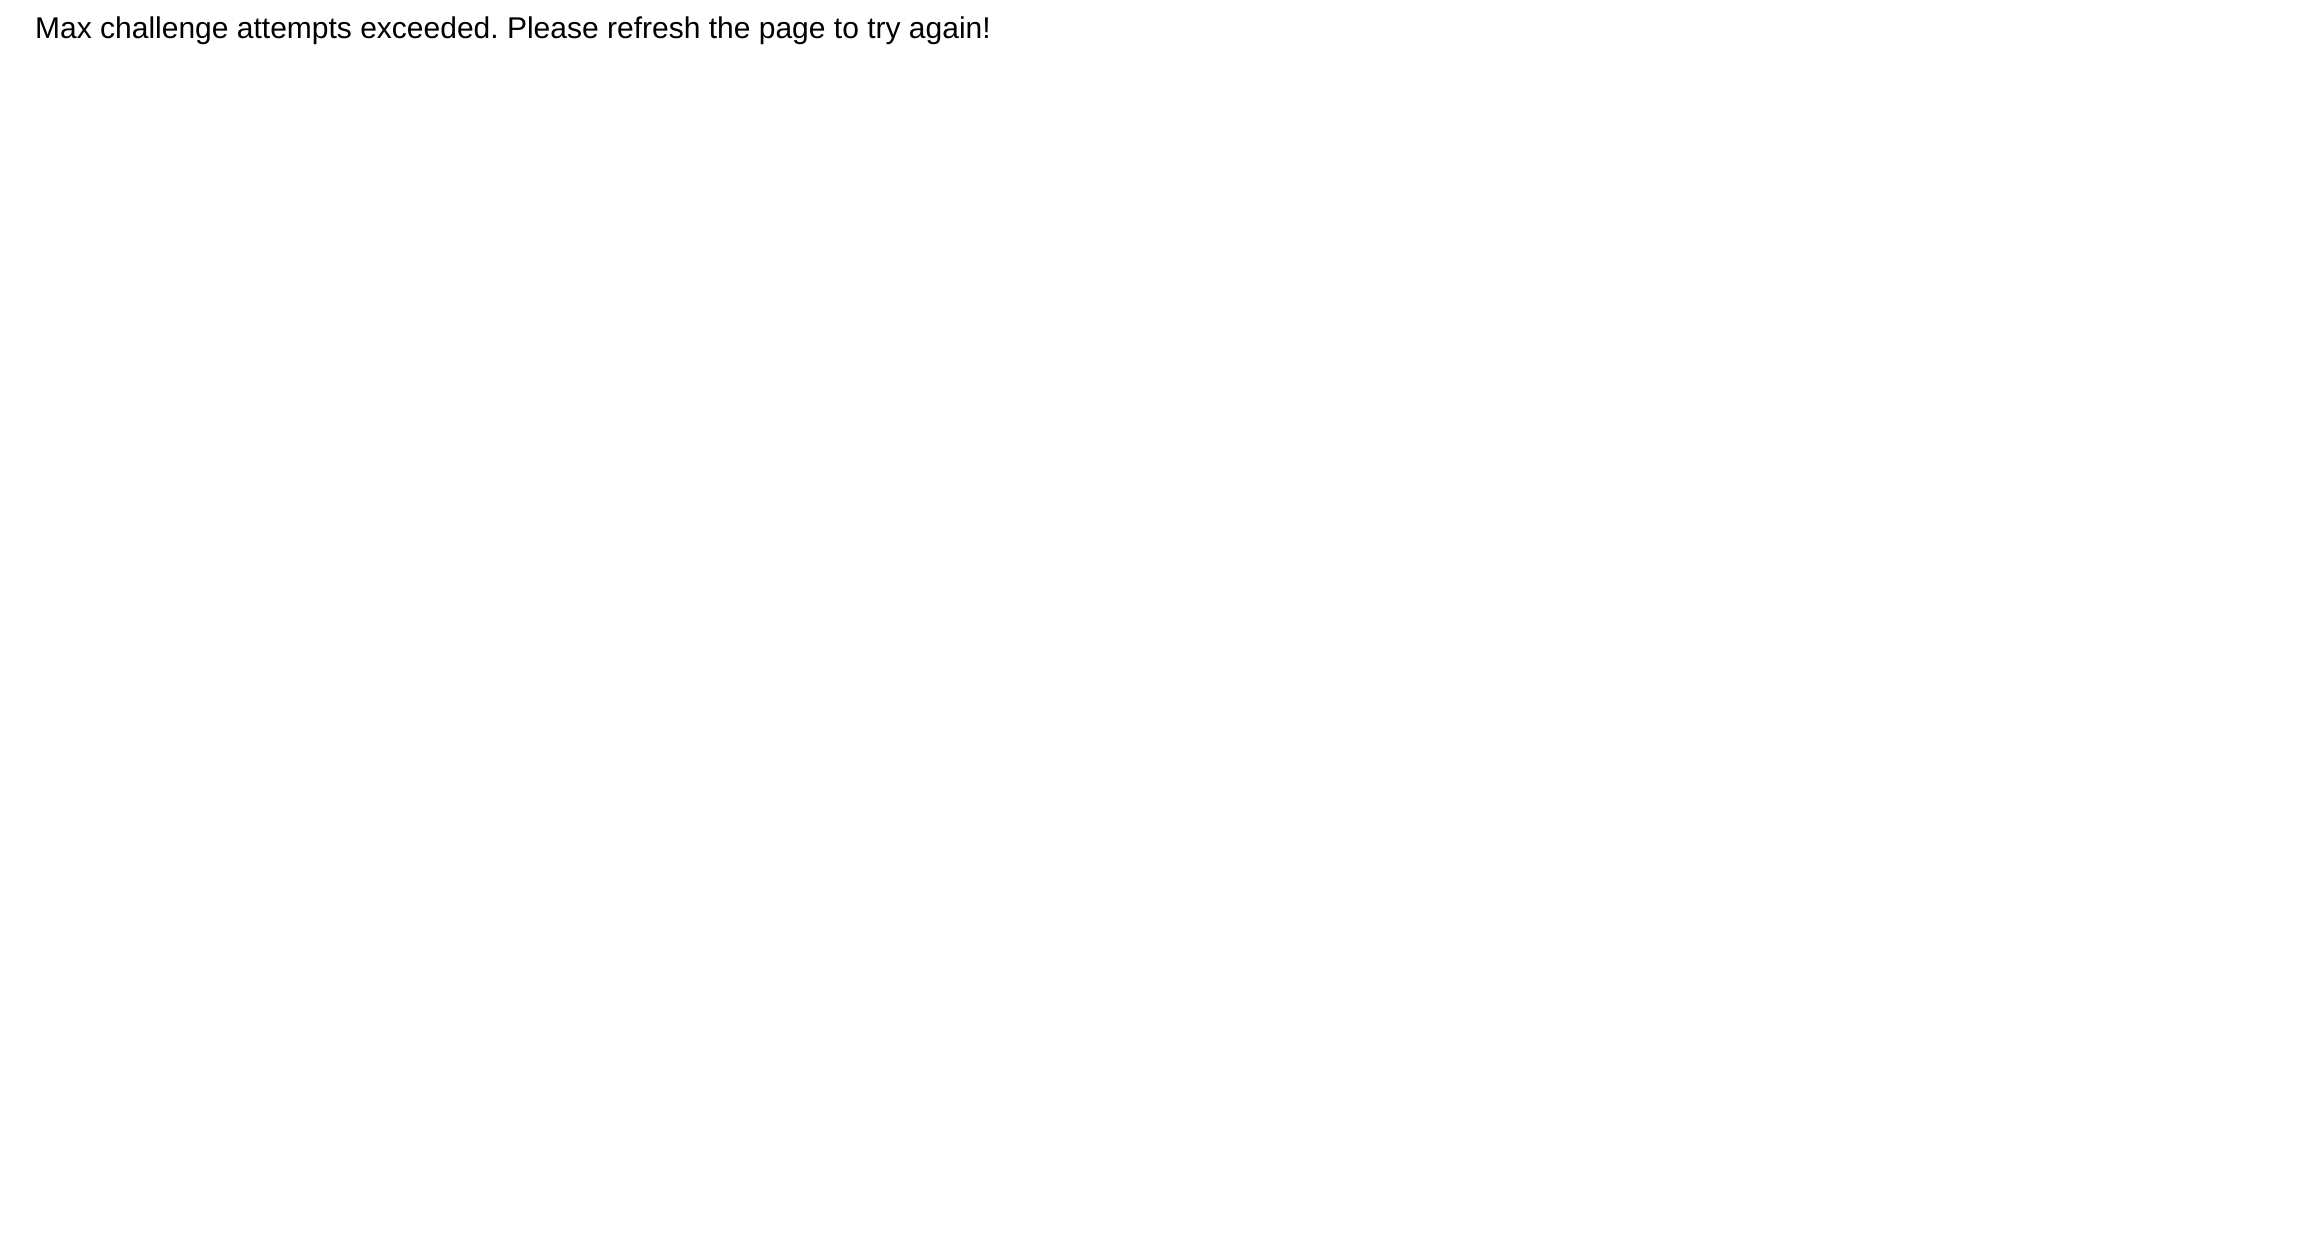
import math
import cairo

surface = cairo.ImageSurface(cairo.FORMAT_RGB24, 2314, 1247)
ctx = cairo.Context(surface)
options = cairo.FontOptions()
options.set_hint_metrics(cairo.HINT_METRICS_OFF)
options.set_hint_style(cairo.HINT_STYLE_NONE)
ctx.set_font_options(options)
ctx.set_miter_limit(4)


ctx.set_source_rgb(1, 1, 1)
ctx.paint()
ctx.select_font_face("Liberation Sans")
ctx.set_font_size(30)
ctx.set_source_rgb(0, 0, 0)
ctx.move_to(35, 38)
ctx.show_text("Max challenge attempts exceeded. Please refresh the page to try again!")
surface.write_to_png("page.png")
